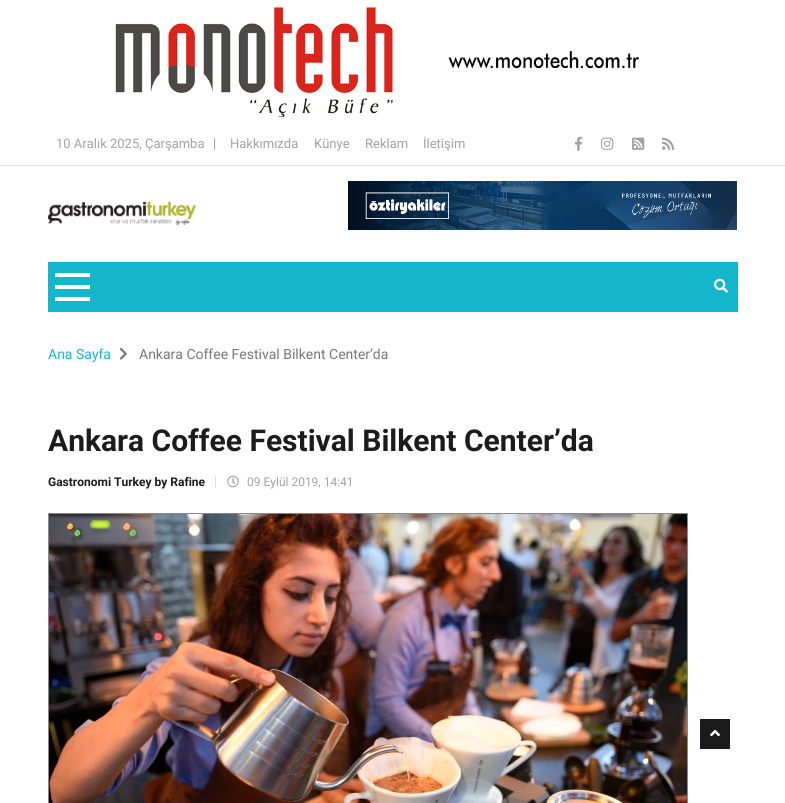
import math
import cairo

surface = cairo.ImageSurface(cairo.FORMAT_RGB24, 785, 803)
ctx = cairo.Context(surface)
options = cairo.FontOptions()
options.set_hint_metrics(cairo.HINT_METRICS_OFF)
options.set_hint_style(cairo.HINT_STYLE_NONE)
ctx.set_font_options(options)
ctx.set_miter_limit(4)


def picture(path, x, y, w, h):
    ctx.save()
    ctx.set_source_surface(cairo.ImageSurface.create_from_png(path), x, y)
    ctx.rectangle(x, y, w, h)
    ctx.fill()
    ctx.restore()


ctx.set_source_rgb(1, 1, 1)
ctx.paint()
picture("img1.png", 115, 7, 524, 110)
ctx.set_source_rgb(0.871, 0.871, 0.871)
ctx.rectangle(0, 165, 785, 1)
ctx.fill()
ctx.set_source_rgb(0.675, 0.675, 0.675)
ctx.rectangle(214, 138, 1, 12)
ctx.fill()
ctx.select_font_face("Roboto")
ctx.set_font_size(13)
ctx.set_source_rgb(0.639, 0.639, 0.639)
ctx.move_to(56, 148)
ctx.show_text("10 Aralık 2025, Çarşamba")
ctx.move_to(230, 148)
ctx.show_text("Hakkımızda")
ctx.move_to(314, 148)
ctx.show_text("Künye")
ctx.move_to(365, 148)
ctx.show_text("Reklam")
ctx.move_to(423, 148)
ctx.show_text("İletişim")
picture("img2.png", 575, 136, 8, 15)
picture("img3.png", 601, 137, 13, 13)
picture("img4.png", 632, 137, 13, 13)
picture("img5.png", 662, 137, 13, 13)
picture("img6.png", 48, 202, 148, 24)
picture("img7.png", 348, 181, 389, 49)
ctx.set_source_rgb(0.078, 0.714, 0.796)
ctx.rectangle(48, 262, 690, 50)
ctx.fill()
ctx.set_source_rgb(1, 1, 1)
ctx.rectangle(55, 273, 35, 4)
ctx.fill()
ctx.rectangle(55, 285, 35, 4)
ctx.fill()
ctx.rectangle(55, 297, 35, 4)
ctx.fill()
picture("img8.png", 714, 278, 14, 15)
ctx.set_font_size(14)
ctx.set_source_rgb(0.078, 0.714, 0.796)
ctx.move_to(48, 359)
ctx.show_text("Ana Sayfa")
picture("img9.png", 119, 347, 8, 13)
ctx.set_source_rgb(0.467, 0.467, 0.467)
ctx.move_to(139, 359)
ctx.show_text("Ankara Coffee Festival Bilkent Center’da")
ctx.select_font_face("Roboto", cairo.FONT_SLANT_NORMAL, cairo.FONT_WEIGHT_BOLD)
ctx.set_font_size(30)
ctx.set_source_rgb(0.11, 0.11, 0.11)
ctx.move_to(48, 451)
ctx.show_text("Ankara Coffee Festival Bilkent Center’da")
ctx.set_source_rgb(0.871, 0.871, 0.871)
ctx.rectangle(215, 476, 1, 12)
ctx.fill()
ctx.set_font_size(12)
ctx.set_source_rgb(0.11, 0.11, 0.11)
ctx.move_to(48, 486)
ctx.show_text("Gastronomi Turkey by Rafine")
picture("img10.png", 227, 475, 12, 13)
ctx.select_font_face("Roboto")
ctx.set_source_rgb(0.639, 0.639, 0.639)
ctx.move_to(247, 486)
ctx.show_text("09 Eylül 2019, 14:41")
ctx.rectangle(48.5, 513.5, 639, 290)
ctx.set_source_rgb(0.533, 0.533, 0.533)
ctx.set_line_width(1)
ctx.stroke()
picture("img11.png", 49, 514, 638, 289)
ctx.set_source_rgb(0.102, 0.102, 0.102)
ctx.rectangle(700, 719, 30, 30)
ctx.fill()
picture("img12.png", 710, 729, 10, 8)
surface.write_to_png("page.png")
